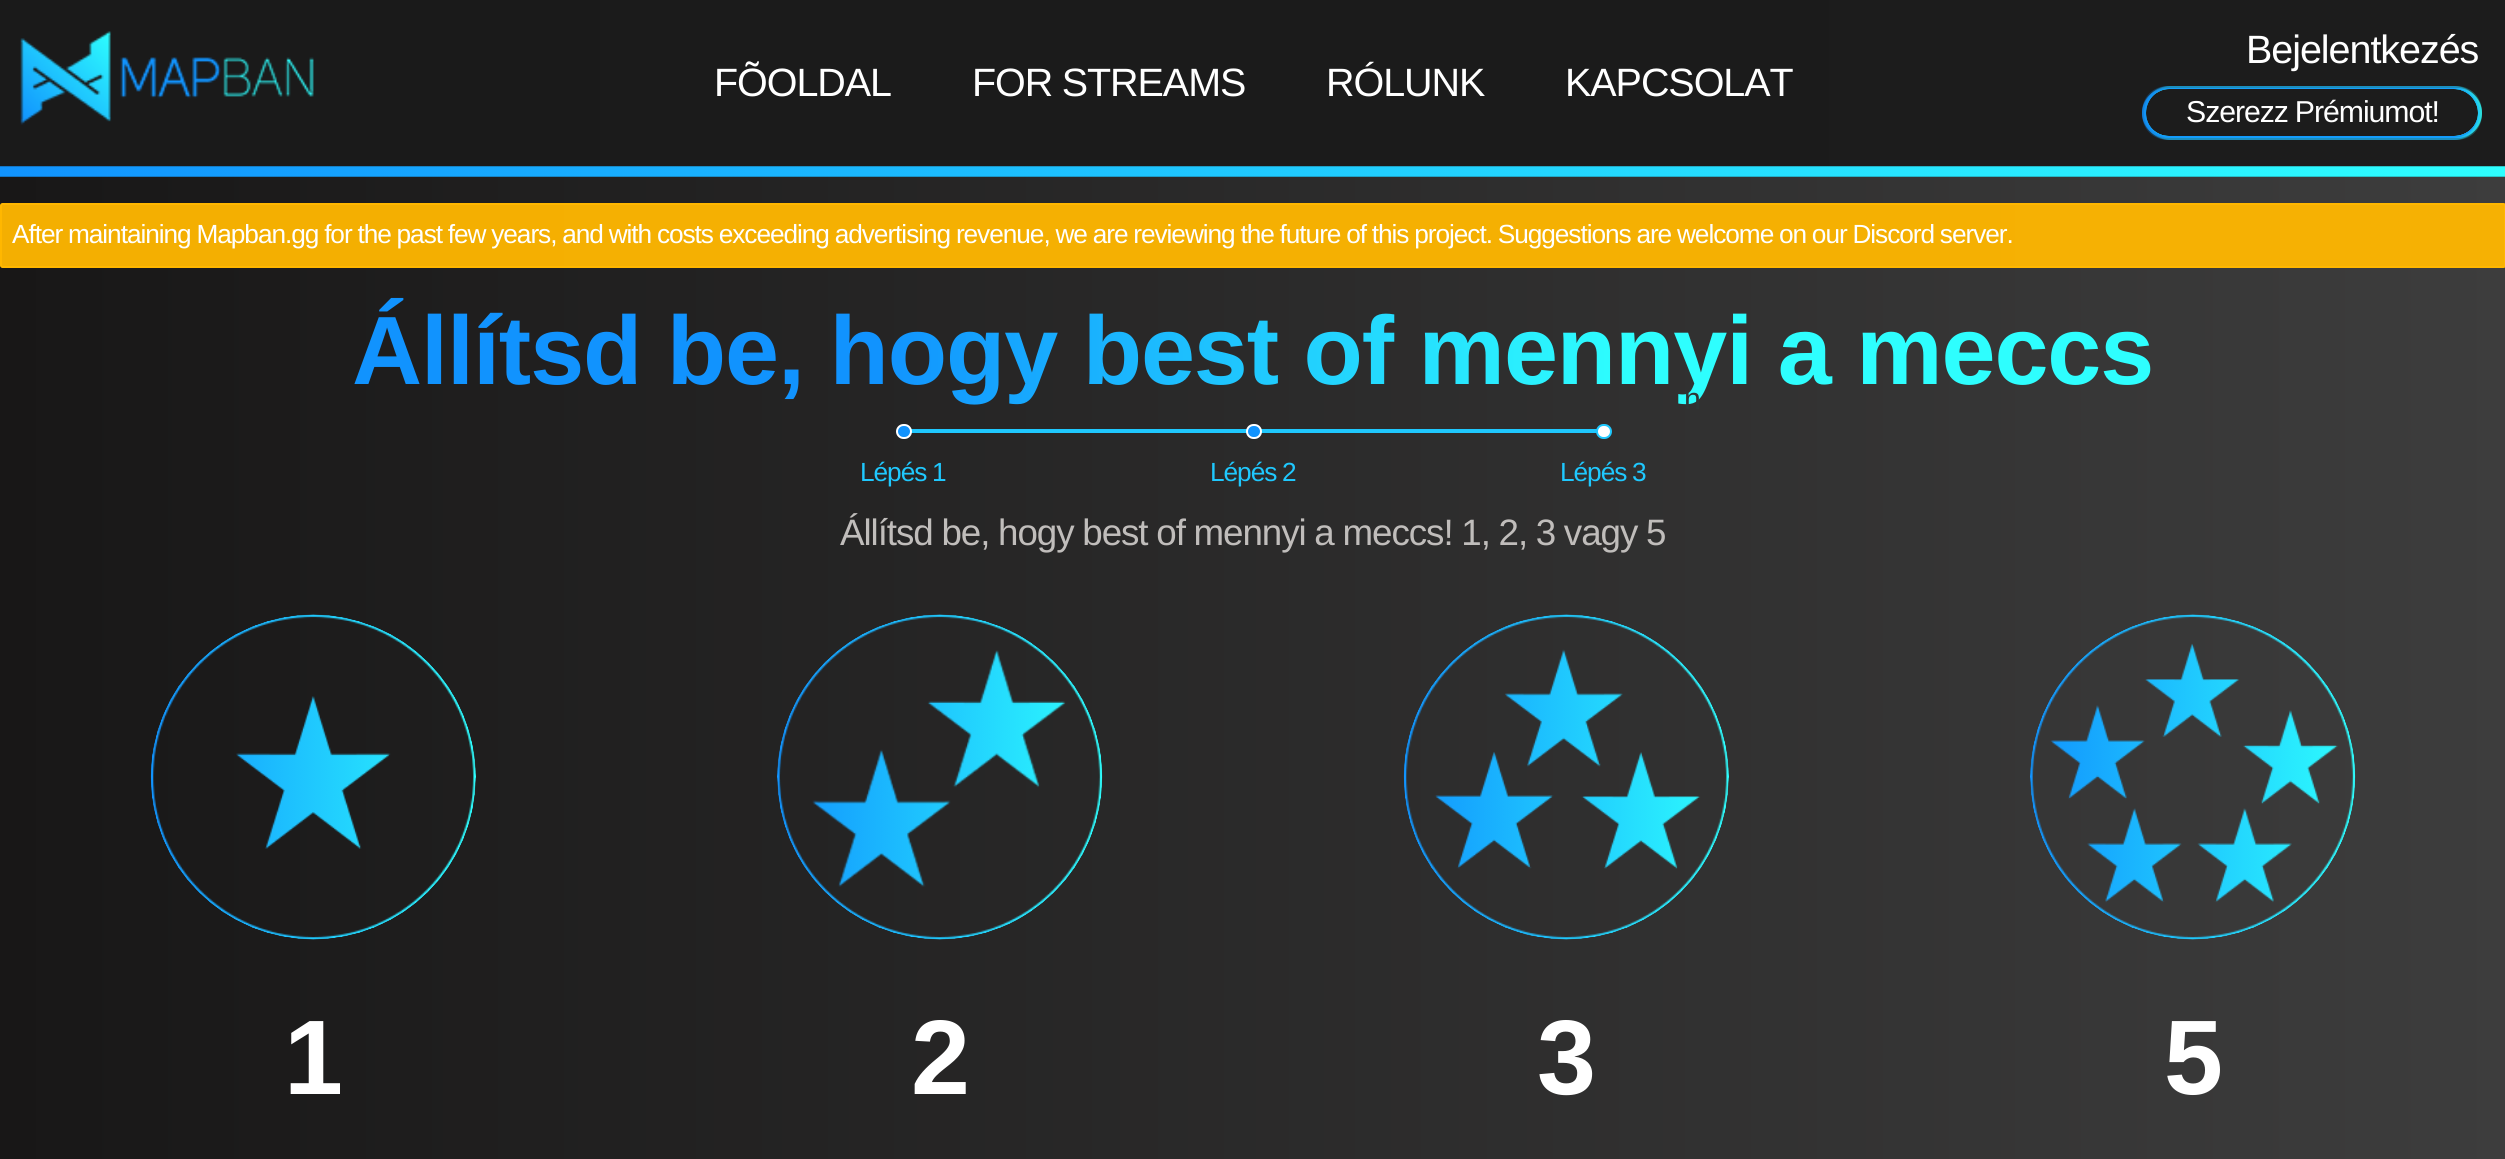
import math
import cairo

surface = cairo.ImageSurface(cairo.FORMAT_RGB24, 2505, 1159)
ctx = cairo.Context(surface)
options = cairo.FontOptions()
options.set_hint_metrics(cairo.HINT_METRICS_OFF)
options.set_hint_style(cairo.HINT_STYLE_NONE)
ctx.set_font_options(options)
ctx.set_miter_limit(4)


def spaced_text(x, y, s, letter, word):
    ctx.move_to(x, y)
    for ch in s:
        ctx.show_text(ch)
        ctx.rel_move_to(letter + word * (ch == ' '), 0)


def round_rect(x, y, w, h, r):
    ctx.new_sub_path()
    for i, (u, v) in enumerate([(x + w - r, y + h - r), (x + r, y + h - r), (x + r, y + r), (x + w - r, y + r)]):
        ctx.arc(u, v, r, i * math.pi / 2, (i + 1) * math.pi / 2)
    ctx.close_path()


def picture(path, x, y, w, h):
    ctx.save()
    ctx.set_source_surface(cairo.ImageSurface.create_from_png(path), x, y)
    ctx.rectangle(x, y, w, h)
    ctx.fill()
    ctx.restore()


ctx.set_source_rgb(1, 1, 1)
ctx.paint()
gradient = cairo.LinearGradient(0, 580, 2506, 580)
gradient.add_color_stop_rgba(0, 0.094, 0.09, 0.09, 1)
gradient.add_color_stop_rgba(1, 0.239, 0.239, 0.239, 1)
ctx.set_source(gradient)
ctx.rectangle(0, 177, 2505, 982)
ctx.fill()
gradient = cairo.LinearGradient(0, 83, 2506, 83)
gradient.add_color_stop_rgba(0, 0.102, 0.102, 0.102, 1)
gradient.add_color_stop_rgba(1, 0.11, 0.11, 0.11, 1)
ctx.set_source(gradient)
ctx.rectangle(0, 0, 2505, 177)
ctx.fill()
picture("img1.png", 0, 166, 2505, 11)
picture("img2.png", 20, 31, 294, 94)
ctx.select_font_face("Liberation Sans")
ctx.set_font_size(39.5)
ctx.set_source_rgb(1, 1, 1)
spaced_text(714, 96, "FÕOLDAL", -1.05, 0)
spaced_text(972, 96, "FOR STREAMS", -1.05, -0.45)
spaced_text(1326, 96, "RÓLUNK", -1.05, 0)
spaced_text(1565, 96, "KAPCSOLAT", -1.05, 0)
spaced_text(2246, 63, "Bejelentkezés", -1.05, 0)
ctx.set_source_rgb(0.165, 0.776, 0.776)
ctx.new_path()
ctx.move_to(2171, 88)
ctx.curve_to(2164, 88, 2158, 91, 2153, 95)
ctx.curve_to(2158, 92, 2163, 89, 2169, 89)
ctx.line_to(2454, 89)
ctx.curve_to(2467, 89, 2478, 100, 2478, 113)
ctx.curve_to(2478, 126, 2467, 136, 2454, 136)
ctx.line_to(2169, 136)
ctx.curve_to(2162, 136, 2156, 133, 2151, 128)
ctx.curve_to(2156, 134, 2163, 138, 2171, 138)
ctx.line_to(2457, 138)
ctx.curve_to(2471, 138, 2482, 127, 2482, 113)
ctx.curve_to(2482, 99, 2471, 88, 2457, 88)
ctx.close_path()
ctx.fill()
ctx.set_source_rgba(0.18, 0.996, 0.996, 0.25)
ctx.new_path()
ctx.move_to(2172, 89)
ctx.line_to(2168, 89)
ctx.line_to(2454, 89)
ctx.curve_to(2467, 89, 2478, 100, 2478, 113)
ctx.curve_to(2478, 126, 2467, 136, 2454, 136)
ctx.line_to(2169, 136)
ctx.curve_to(2159, 136, 2150, 130, 2147, 120)
ctx.curve_to(2149, 131, 2159, 140, 2172, 140)
ctx.line_to(2456, 140)
ctx.curve_to(2471, 140, 2482, 129, 2482, 114)
ctx.curve_to(2482, 100, 2471, 89, 2456, 89)
ctx.close_path()
ctx.fill()
ctx.new_path()
ctx.move_to(2172, 86)
ctx.curve_to(2160, 86, 2150, 94, 2147, 105)
ctx.curve_to(2150, 96, 2159, 89, 2169, 89)
ctx.line_to(2454, 89)
ctx.curve_to(2467, 89, 2478, 100, 2478, 113)
ctx.curve_to(2478, 126, 2467, 136, 2454, 136)
ctx.line_to(2169, 136)
ctx.line_to(2165, 136)
ctx.line_to(2172, 137)
ctx.line_to(2456, 137)
ctx.curve_to(2471, 137, 2482, 126, 2482, 112)
ctx.curve_to(2482, 97, 2471, 86, 2456, 86)
ctx.close_path()
ctx.fill()
ctx.set_source_rgba(0.122, 0.784, 0.996, 0.5)
ctx.set_fill_rule(cairo.FILL_RULE_EVEN_ODD)
ctx.new_path()
ctx.move_to(2170, 89)
ctx.curve_to(2155, 89, 2144, 100, 2144, 114)
ctx.curve_to(2144, 129, 2155, 140, 2170, 140)
ctx.line_to(2454, 140)
ctx.curve_to(2469, 140, 2480, 129, 2480, 114)
ctx.curve_to(2480, 100, 2469, 89, 2454, 89)
ctx.close_path()
ctx.move_to(2169, 89)
ctx.curve_to(2156, 89, 2146, 100, 2146, 113)
ctx.curve_to(2146, 126, 2156, 136, 2169, 136)
ctx.line_to(2454, 136)
ctx.curve_to(2467, 136, 2478, 126, 2478, 113)
ctx.curve_to(2478, 100, 2467, 89, 2454, 89)
ctx.close_path()
ctx.fill()
ctx.new_path()
ctx.move_to(2170, 86)
ctx.curve_to(2155, 86, 2144, 97, 2144, 112)
ctx.curve_to(2144, 126, 2155, 137, 2170, 137)
ctx.line_to(2454, 137)
ctx.curve_to(2469, 137, 2480, 126, 2480, 112)
ctx.curve_to(2480, 97, 2469, 86, 2454, 86)
ctx.close_path()
ctx.move_to(2169, 89)
ctx.curve_to(2156, 89, 2146, 100, 2146, 113)
ctx.curve_to(2146, 126, 2156, 136, 2169, 136)
ctx.line_to(2454, 136)
ctx.curve_to(2467, 136, 2478, 126, 2478, 113)
ctx.curve_to(2478, 100, 2467, 89, 2454, 89)
ctx.close_path()
ctx.fill()
ctx.set_source_rgba(0.067, 0.576, 0.996, 0.25)
ctx.set_fill_rule(cairo.FILL_RULE_WINDING)
ctx.new_path()
ctx.move_to(2168, 89)
ctx.curve_to(2153, 89, 2142, 100, 2142, 114)
ctx.curve_to(2142, 129, 2153, 140, 2168, 140)
ctx.line_to(2452, 140)
ctx.curve_to(2467, 140, 2478, 129, 2478, 114)
ctx.curve_to(2478, 126, 2467, 136, 2454, 136)
ctx.line_to(2169, 136)
ctx.curve_to(2156, 136, 2146, 126, 2146, 113)
ctx.curve_to(2146, 100, 2156, 89, 2169, 89)
ctx.line_to(2457, 89)
ctx.line_to(2452, 89)
ctx.close_path()
ctx.fill()
ctx.new_path()
ctx.move_to(2168, 86)
ctx.curve_to(2153, 86, 2142, 97, 2142, 112)
ctx.curve_to(2142, 126, 2153, 137, 2168, 137)
ctx.line_to(2452, 137)
ctx.curve_to(2455, 137, 2458, 137, 2461, 136)
ctx.line_to(2454, 136)
ctx.line_to(2169, 136)
ctx.curve_to(2156, 136, 2146, 126, 2146, 113)
ctx.curve_to(2146, 100, 2156, 89, 2169, 89)
ctx.line_to(2454, 89)
ctx.curve_to(2467, 89, 2478, 99, 2478, 112)
ctx.curve_to(2478, 98, 2467, 86, 2452, 86)
ctx.close_path()
ctx.fill()
ctx.set_source_rgba(0.067, 0.576, 0.996, 0.75)
ctx.new_path()
ctx.move_to(2167, 88)
ctx.curve_to(2153, 88, 2142, 99, 2142, 113)
ctx.curve_to(2142, 127, 2153, 138, 2167, 138)
ctx.line_to(2453, 138)
ctx.curve_to(2467, 138, 2478, 127, 2478, 113)
ctx.curve_to(2478, 126, 2467, 136, 2454, 136)
ctx.line_to(2169, 136)
ctx.curve_to(2156, 136, 2146, 126, 2146, 113)
ctx.curve_to(2146, 100, 2156, 89, 2169, 89)
ctx.line_to(2454, 89)
ctx.curve_to(2466, 89, 2476, 98, 2478, 109)
ctx.curve_to(2476, 97, 2465, 88, 2453, 88)
ctx.close_path()
ctx.fill()
ctx.set_font_size(30.25)
ctx.set_source_rgb(1, 1, 1)
spaced_text(2186, 122, "Szerezz Prémiumot!", -1.05, -0.45)
ctx.set_source_rgba(1, 0.718, 0, 0.95)
round_rect(1, 204, 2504, 63, 1.5)
ctx.fill_preserve()
ctx.set_source_rgb(1, 0.718, 0)
ctx.stroke()
ctx.set_font_size(26.25)
ctx.set_source_rgb(1, 1, 1)
spaced_text(12, 243, "After maintaining Mapban.gg for the past few years, and with costs exceeding advertising revenue, we are reviewing the future of this project. Suggestions are welcome on our Discord server.", -1.05, -0.45)
ctx.select_font_face("Liberation Sans", cairo.FONT_SLANT_NORMAL, cairo.FONT_WEIGHT_BOLD)
ctx.set_font_size(97.1)
gradient = cairo.LinearGradient(0, 351, 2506, 351)
gradient.add_color_stop_rgba(0.35, 0.067, 0.576, 0.996, 1)
gradient.add_color_stop_rgba(0.65, 0.18, 0.996, 0.996, 1)
ctx.set_source(gradient)
spaced_text(352, 384, "Állítsd be, hogy best of mennyi a meccs", -1.05, -0.45)
ctx.set_source_rgb(0.122, 0.784, 0.996)
ctx.rectangle(903, 429, 700, 4)
ctx.fill()
ctx.set_source_rgb(0.067, 0.576, 0.996)
round_rect(897, 425, 14, 13, 6.5)
ctx.fill_preserve()
ctx.set_source_rgb(1, 1, 1)
ctx.stroke()
ctx.select_font_face("Liberation Sans")
ctx.set_font_size(26.25)
ctx.set_source_rgb(0.122, 0.784, 0.996)
spaced_text(860, 481, "Lépés 1", -1.05, -0.45)
ctx.set_source_rgb(0.067, 0.576, 0.996)
round_rect(1247, 425, 14, 13, 6.5)
ctx.fill_preserve()
ctx.set_source_rgb(1, 1, 1)
ctx.stroke()
ctx.set_source_rgb(0.122, 0.784, 0.996)
spaced_text(1210, 481, "Lépés 2", -1.05, -0.45)
ctx.set_font_size(30.25)
ctx.set_source_rgb(0.184, 0.208, 0.208)
spaced_text(1684, 409, "n", -1.05, -0.45)
ctx.set_source_rgb(1, 1, 1)
round_rect(1597, 425, 14, 13, 6.5)
ctx.fill_preserve()
ctx.set_source_rgb(0.122, 0.784, 0.996)
ctx.stroke()
ctx.set_font_size(26.25)
spaced_text(1560, 481, "Lépés 3", -1.05, -0.45)
ctx.set_font_size(36.75)
ctx.set_source_rgb(0.753, 0.741, 0.733)
spaced_text(840, 545, "Állítsd be, hogy best of mennyi a meccs! 1, 2, 3 vagy 5", -1.05, -0.45)
picture("img3.png", 150, 614, 326, 326)
ctx.select_font_face("Liberation Sans", cairo.FONT_SLANT_NORMAL, cairo.FONT_WEIGHT_BOLD)
ctx.set_font_size(106)
ctx.set_source_rgb(1, 1, 1)
spaced_text(284, 1094, "1", -1.05, 0)
picture("img4.png", 777, 614, 326, 326)
spaced_text(911, 1094, "2", -1.05, 0)
picture("img5.png", 1403, 614, 326, 326)
spaced_text(1537, 1094, "3", -1.05, 0)
picture("img6.png", 2030, 614, 326, 326)
spaced_text(2164, 1094, "5", -1.05, 0)
surface.write_to_png("page.png")
